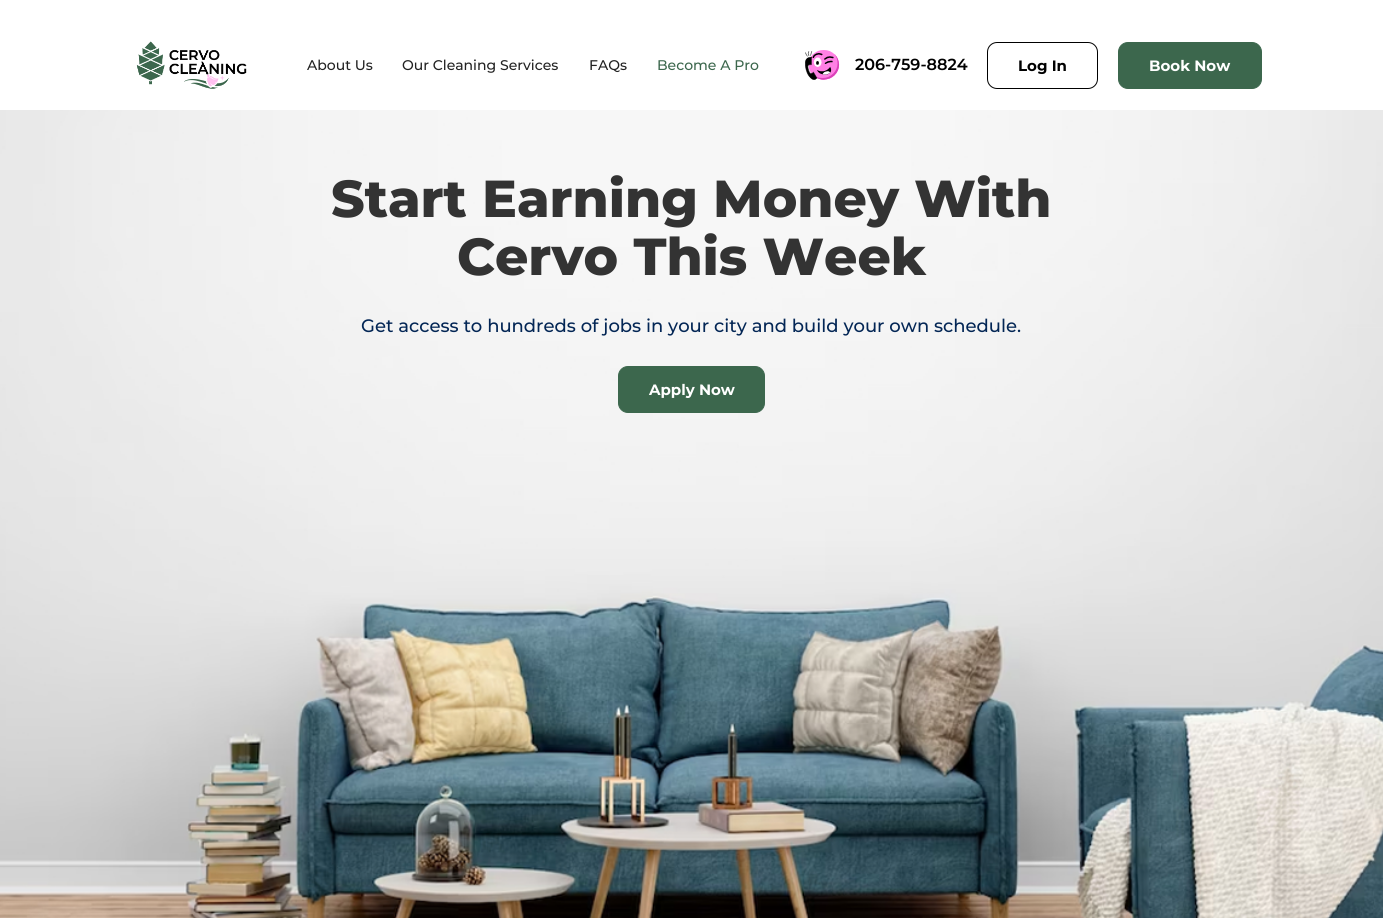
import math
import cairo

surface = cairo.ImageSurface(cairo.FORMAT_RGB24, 1383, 918)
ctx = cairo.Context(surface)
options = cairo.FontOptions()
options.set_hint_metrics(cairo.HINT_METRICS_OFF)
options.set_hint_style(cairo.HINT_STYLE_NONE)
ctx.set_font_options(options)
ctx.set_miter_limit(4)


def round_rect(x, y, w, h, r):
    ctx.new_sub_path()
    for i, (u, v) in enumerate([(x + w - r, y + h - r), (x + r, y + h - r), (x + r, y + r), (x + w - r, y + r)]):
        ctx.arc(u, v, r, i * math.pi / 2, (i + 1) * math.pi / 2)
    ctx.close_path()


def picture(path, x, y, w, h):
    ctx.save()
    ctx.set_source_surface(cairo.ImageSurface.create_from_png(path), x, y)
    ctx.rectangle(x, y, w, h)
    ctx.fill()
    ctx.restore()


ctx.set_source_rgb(1, 1, 1)
ctx.paint()
picture("img1.png", 136, 41, 111, 48)
ctx.select_font_face("Montserrat Medium")
ctx.set_font_size(14)
ctx.set_source_rgb(0.133, 0.133, 0.133)
ctx.move_to(307, 70)
ctx.show_text("About Us")
ctx.move_to(402, 70)
ctx.show_text("Our Cleaning Services")
ctx.move_to(589, 70)
ctx.show_text("FAQs")
ctx.set_source_rgb(0.235, 0.404, 0.302)
ctx.move_to(657, 70)
ctx.show_text("Become A Pro")
picture("img2.png", 805, 50, 35, 30)
ctx.select_font_face("Montserrat SemiBold")
ctx.set_font_size(16)
ctx.set_source_rgb(0, 0, 0)
ctx.move_to(855, 70)
ctx.show_text("206-759-8824")
round_rect(987.5, 42.5, 110, 46, 9.5)
ctx.set_line_width(1)
ctx.stroke()
ctx.select_font_face("Montserrat", cairo.FONT_SLANT_NORMAL, cairo.FONT_WEIGHT_BOLD)
ctx.set_font_size(15)
ctx.move_to(1018, 71)
ctx.show_text("Log In")
ctx.set_source_rgb(0.235, 0.404, 0.302)
round_rect(1118.5, 42.5, 143, 46, 9.5)
ctx.fill_preserve()
ctx.stroke()
ctx.set_source_rgb(1, 1, 1)
ctx.move_to(1149, 71)
ctx.show_text("Book Now")
picture("img3.png", 0, 110, 1383, 808)
ctx.select_font_face("Montserrat ExtraBold")
ctx.set_font_size(52)
ctx.set_source_rgb(0.2, 0.2, 0.2)
ctx.move_to(331, 217)
ctx.show_text("Start Earning Money With")
ctx.move_to(457, 275)
ctx.show_text("Cervo This Week")
ctx.select_font_face("Montserrat Medium")
ctx.set_font_size(18)
ctx.set_source_rgb(0.012, 0.149, 0.333)
ctx.move_to(361, 332)
ctx.show_text("Get access to hundreds of jobs in your city and build your own schedule.")
ctx.set_source_rgb(0.235, 0.404, 0.302)
round_rect(618.5, 366.5, 146, 46, 9.5)
ctx.fill_preserve()
ctx.stroke()
ctx.select_font_face("Montserrat", cairo.FONT_SLANT_NORMAL, cairo.FONT_WEIGHT_BOLD)
ctx.set_font_size(15)
ctx.set_source_rgb(1, 1, 1)
ctx.move_to(649, 395)
ctx.show_text("Apply Now")
surface.write_to_png("page.png")
